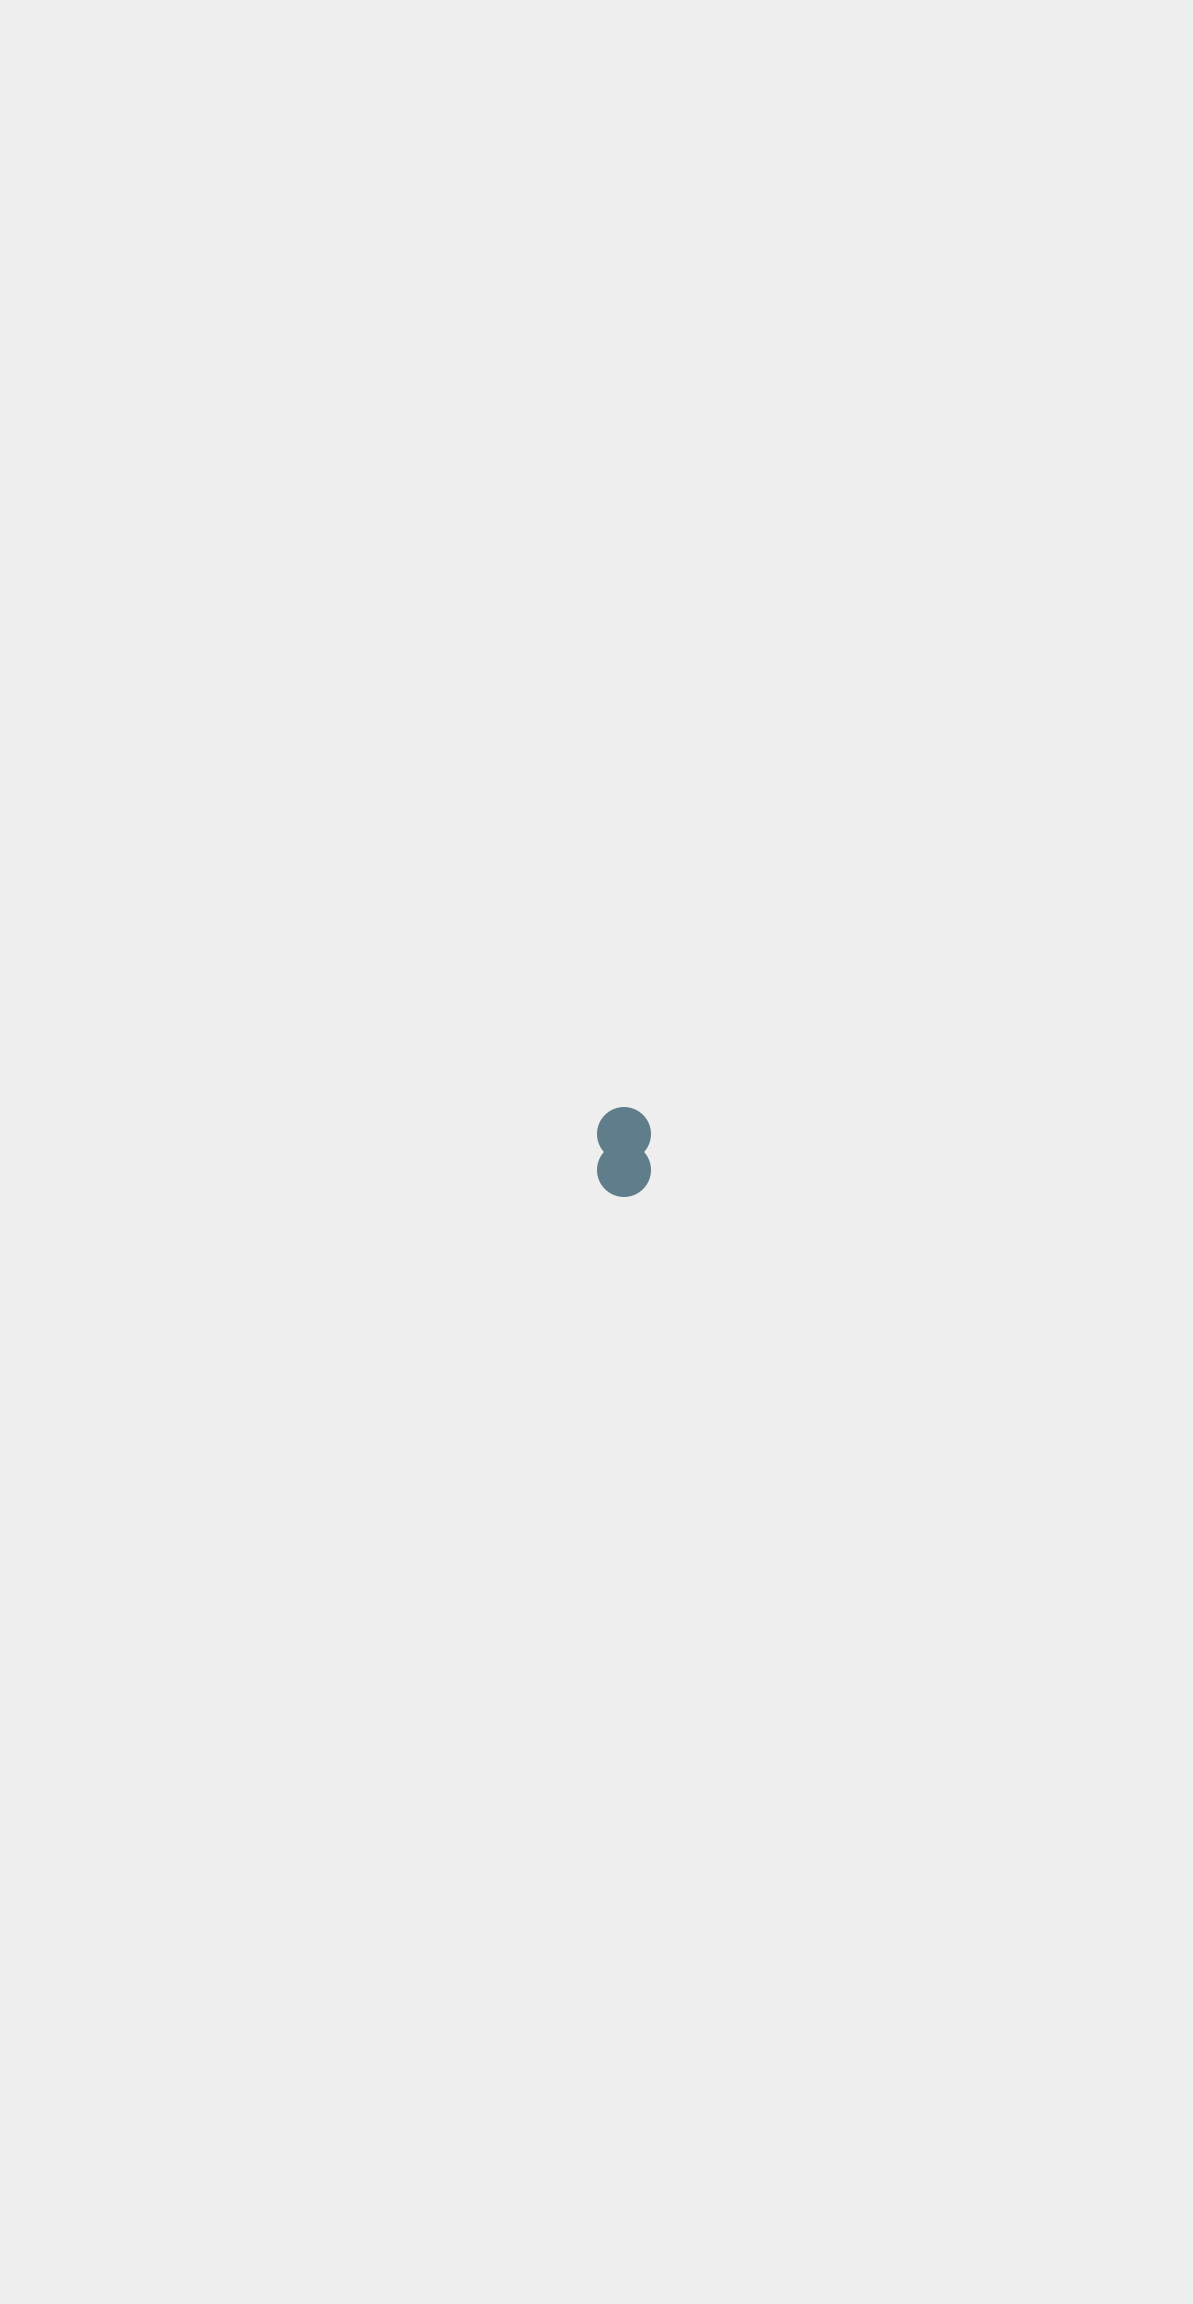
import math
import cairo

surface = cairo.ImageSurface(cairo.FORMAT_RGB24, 1193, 2304)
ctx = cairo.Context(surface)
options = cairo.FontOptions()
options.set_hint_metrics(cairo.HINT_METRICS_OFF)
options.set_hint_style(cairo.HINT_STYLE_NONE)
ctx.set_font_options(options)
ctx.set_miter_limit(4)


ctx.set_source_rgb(0.933, 0.933, 0.933)
ctx.paint()
ctx.set_source_rgb(0.376, 0.49, 0.545)
ctx.arc(624, 1134, 27, 0, 2 * math.pi)
ctx.fill()
ctx.arc(624, 1170, 27, 0, 2 * math.pi)
ctx.fill()
surface.write_to_png("page.png")
